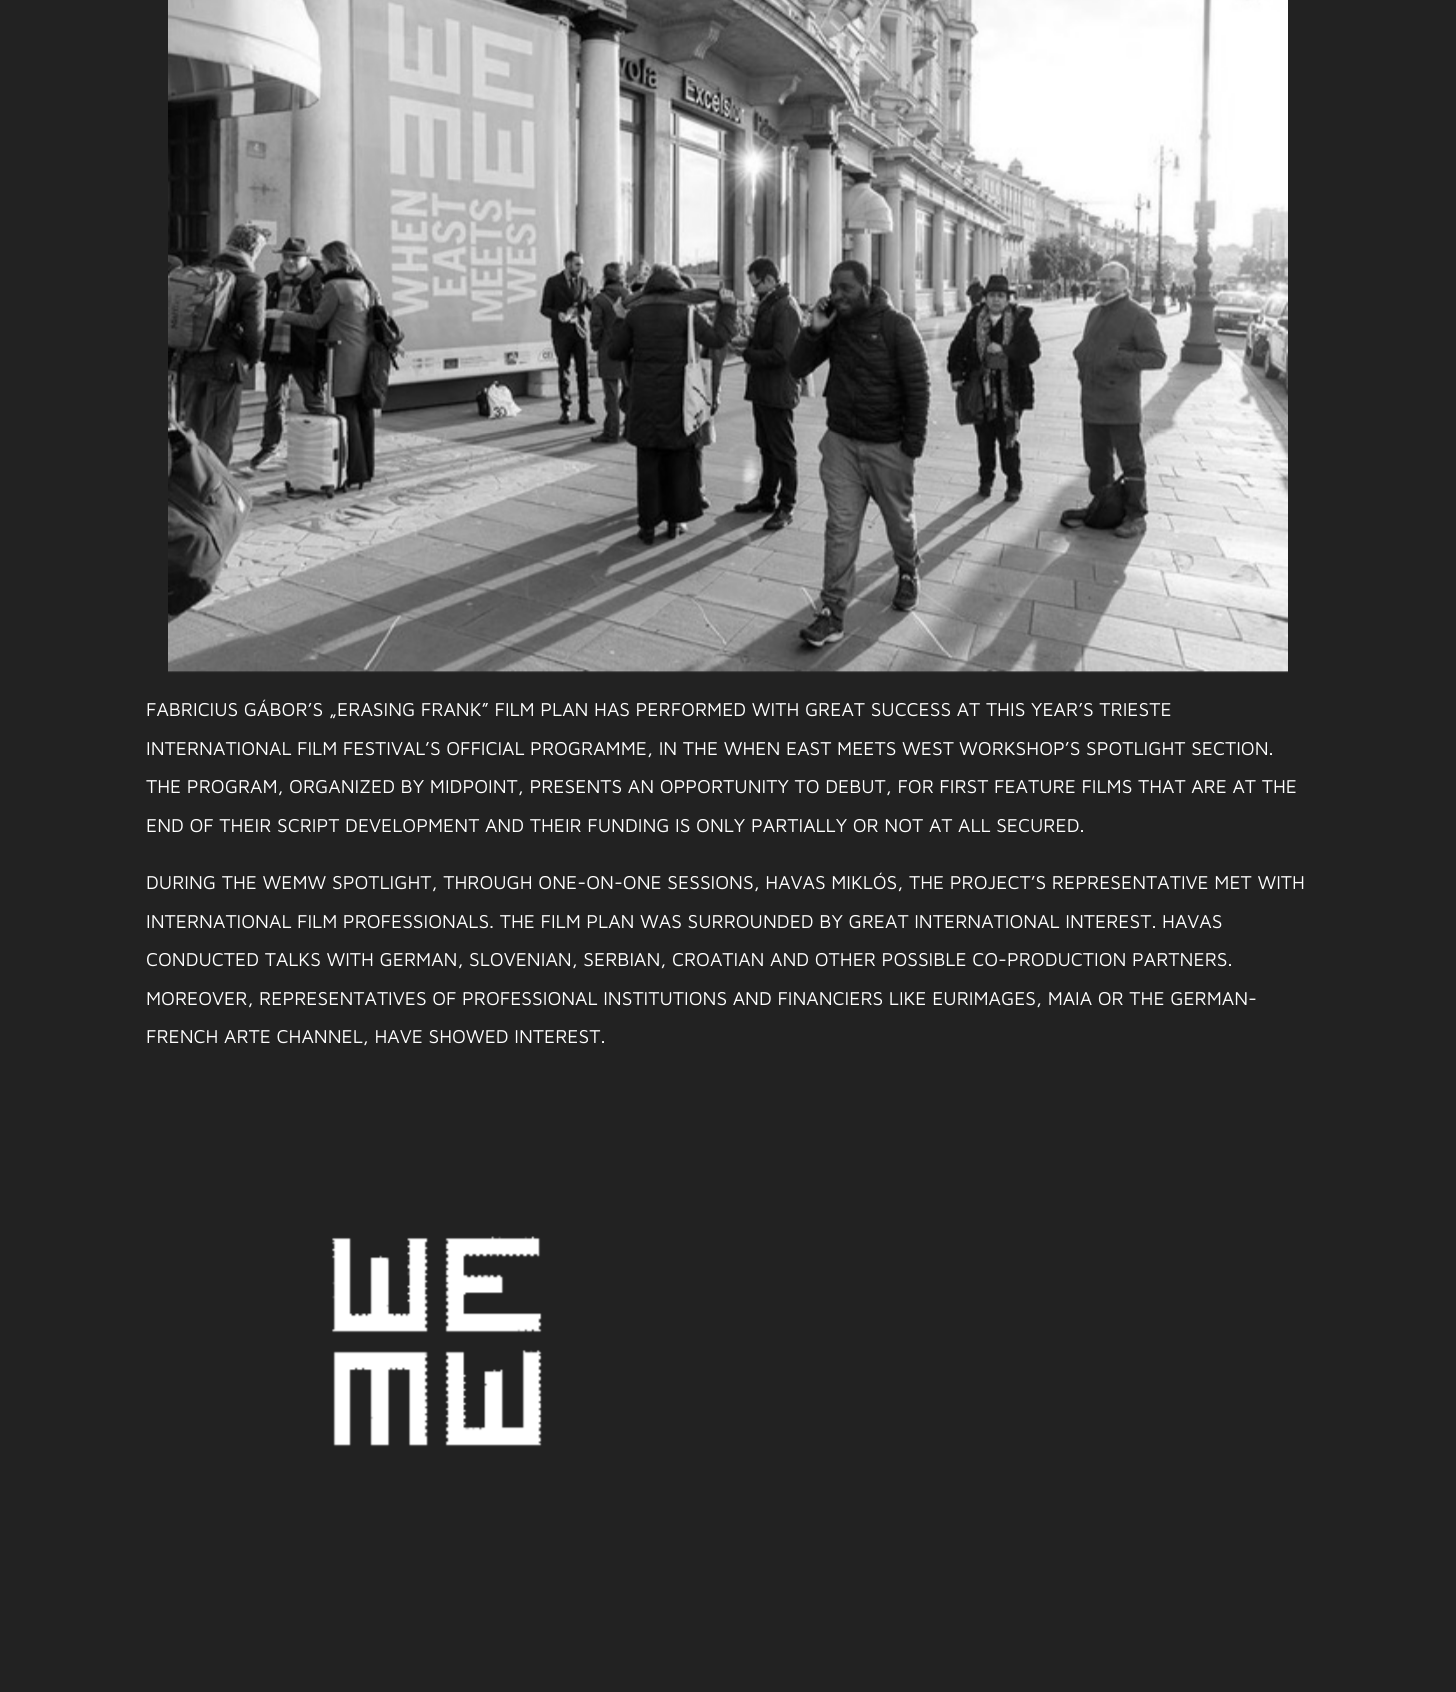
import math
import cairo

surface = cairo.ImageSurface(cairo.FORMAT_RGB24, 1456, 1692)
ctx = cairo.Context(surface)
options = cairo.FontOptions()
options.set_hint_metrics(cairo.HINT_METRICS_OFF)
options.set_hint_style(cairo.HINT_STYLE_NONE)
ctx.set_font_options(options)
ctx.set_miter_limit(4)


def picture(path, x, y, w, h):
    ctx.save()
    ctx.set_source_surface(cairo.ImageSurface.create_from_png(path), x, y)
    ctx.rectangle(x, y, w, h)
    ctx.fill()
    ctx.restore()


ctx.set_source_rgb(0.133, 0.133, 0.133)
ctx.paint()
picture("img1.png", 168, 0, 1120, 673)
ctx.select_font_face("Maven Pro")
ctx.set_font_size(19.25)
ctx.set_source_rgb(1, 1, 1)
ctx.move_to(146, 716)
ctx.show_text("FABRICIUS GÁBOR’S „ERASING FRANK” FILM PLAN HAS PERFORMED WITH GREAT SUCCESS AT THIS YEAR’S TRIESTE")
ctx.move_to(146, 755)
ctx.show_text("INTERNATIONAL FILM FESTIVAL")
ctx.move_to(425, 755)
ctx.show_text("’S OFFICIAL PROGRAMME, IN THE WHEN EAST MEETS WEST")
ctx.move_to(959, 755)
ctx.show_text("WORKSHOP’S SPOTLIGHT SECTION.")
ctx.move_to(146, 793)
ctx.show_text("THE PROGRAM, ORGANIZED BY MIDPOINT, PRESENTS AN OPPORTUNITY TO DEBUT, FOR FIRST FEATURE FILMS THAT ARE AT THE")
ctx.move_to(146, 832)
ctx.show_text("END OF THEIR SCRIPT DEVELOPMENT AND THEIR FUNDING IS ONLY PARTIALLY OR NOT AT ALL SECURED.")
ctx.move_to(146, 889)
ctx.show_text("DURING THE WEMW SPOTLIGHT, THROUGH ONE-ON-ONE SESSIONS, HAVAS MIKLÓS, THE PROJECT’S REPRESENTATIVE MET WITH")
ctx.move_to(146, 928)
ctx.show_text("INTERNATIONAL FILM PROFESSIONALS. THE FILM PLAN WAS SURROUNDED BY GREAT INTERNATIONAL INTEREST. HAVAS")
ctx.move_to(146, 966)
ctx.show_text("CONDUCTED TALKS WITH GERMAN, SLOVENIAN, SERBIAN, CROATIAN AND OTHER POSSIBLE CO-PRODUCTION PARTNERS.")
ctx.move_to(146, 1005)
ctx.show_text("MOREOVER, REPRESENTATIVES OF PROFESSIONAL INSTITUTIONS AND FINANCIERS LIKE EURIMAGES, MAIA OR THE GERMAN-")
ctx.move_to(146, 1043)
ctx.show_text("FRENCH ARTE CHANNEL, HAVE SHOWED INTEREST.")
picture("img2.png", 331, 1236, 211, 211)
surface.write_to_png("page.png")
